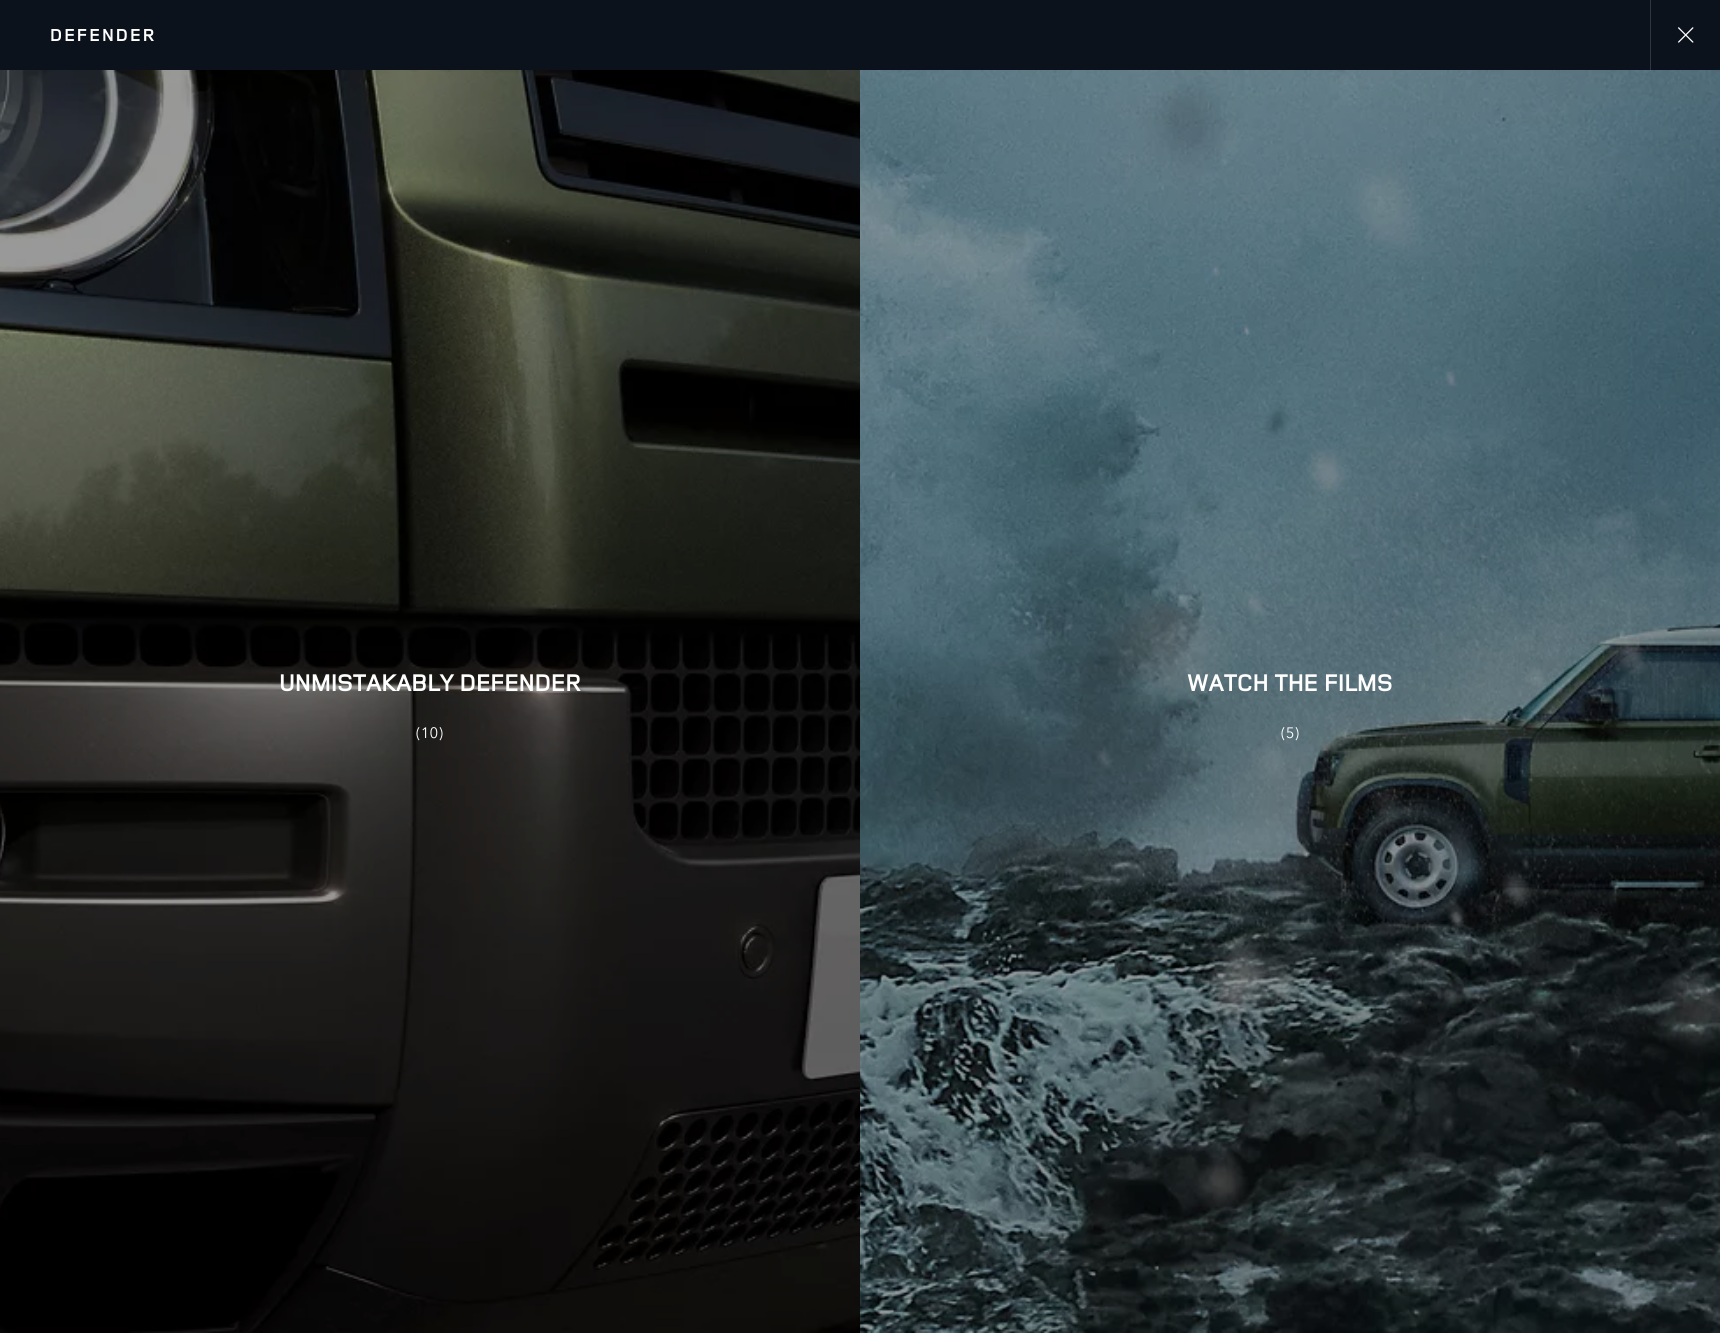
import math
import cairo

surface = cairo.ImageSurface(cairo.FORMAT_RGB24, 1720, 1333)
ctx = cairo.Context(surface)
options = cairo.FontOptions()
options.set_hint_metrics(cairo.HINT_METRICS_OFF)
options.set_hint_style(cairo.HINT_STYLE_NONE)
ctx.set_font_options(options)
ctx.set_miter_limit(4)


def spaced_text(x, y, s, letter, word):
    ctx.move_to(x, y)
    for ch in s:
        ctx.show_text(ch)
        ctx.rel_move_to(letter + word * (ch == ' '), 0)


def picture(path, x, y, w, h):
    ctx.save()
    ctx.set_source_surface(cairo.ImageSurface.create_from_png(path), x, y)
    ctx.rectangle(x, y, w, h)
    ctx.fill()
    ctx.restore()


ctx.set_source_rgb(1, 1, 1)
ctx.paint()
ctx.set_source_rgb(0.047, 0.071, 0.11)
ctx.rectangle(0, 0, 1720, 70)
ctx.fill()
ctx.select_font_face("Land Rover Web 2", cairo.FONT_SLANT_NORMAL, cairo.FONT_WEIGHT_BOLD)
ctx.set_font_size(18)
ctx.set_source_rgb(1, 1, 1)
spaced_text(50, 41, "DEFENDER", 2, 0)
ctx.set_source_rgb(0.188, 0.212, 0.243)
ctx.rectangle(1650, 0, 1, 70)
ctx.fill()
picture("img1.png", 1678, 27, 16, 16)
picture("img2.png", 0, 70, 860, 1263)
ctx.select_font_face("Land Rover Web", cairo.FONT_SLANT_NORMAL, cairo.FONT_WEIGHT_BOLD)
ctx.set_font_size(24)
ctx.set_source_rgb(1, 1, 1)
spaced_text(279, 691, "UNMISTAKABLY DEFENDER", 0.2, 0)
ctx.select_font_face("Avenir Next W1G")
ctx.set_font_size(15)
spaced_text(416, 738, "(10)", 0.2, 0)
picture("img3.png", 860, 70, 860, 1263)
ctx.select_font_face("Land Rover Web", cairo.FONT_SLANT_NORMAL, cairo.FONT_WEIGHT_BOLD)
ctx.set_font_size(24)
spaced_text(1187, 691, "WATCH THE FILMS", 0.2, 0)
ctx.select_font_face("Avenir Next W1G")
ctx.set_font_size(15)
spaced_text(1281, 738, "(5)", 0.2, 0)
surface.write_to_png("page.png")
